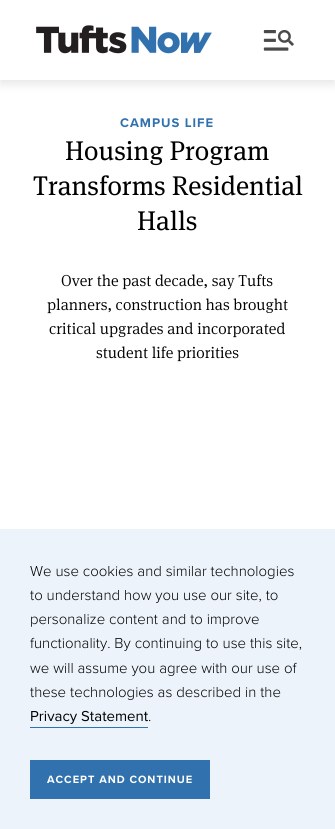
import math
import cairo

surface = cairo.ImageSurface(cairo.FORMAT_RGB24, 335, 829)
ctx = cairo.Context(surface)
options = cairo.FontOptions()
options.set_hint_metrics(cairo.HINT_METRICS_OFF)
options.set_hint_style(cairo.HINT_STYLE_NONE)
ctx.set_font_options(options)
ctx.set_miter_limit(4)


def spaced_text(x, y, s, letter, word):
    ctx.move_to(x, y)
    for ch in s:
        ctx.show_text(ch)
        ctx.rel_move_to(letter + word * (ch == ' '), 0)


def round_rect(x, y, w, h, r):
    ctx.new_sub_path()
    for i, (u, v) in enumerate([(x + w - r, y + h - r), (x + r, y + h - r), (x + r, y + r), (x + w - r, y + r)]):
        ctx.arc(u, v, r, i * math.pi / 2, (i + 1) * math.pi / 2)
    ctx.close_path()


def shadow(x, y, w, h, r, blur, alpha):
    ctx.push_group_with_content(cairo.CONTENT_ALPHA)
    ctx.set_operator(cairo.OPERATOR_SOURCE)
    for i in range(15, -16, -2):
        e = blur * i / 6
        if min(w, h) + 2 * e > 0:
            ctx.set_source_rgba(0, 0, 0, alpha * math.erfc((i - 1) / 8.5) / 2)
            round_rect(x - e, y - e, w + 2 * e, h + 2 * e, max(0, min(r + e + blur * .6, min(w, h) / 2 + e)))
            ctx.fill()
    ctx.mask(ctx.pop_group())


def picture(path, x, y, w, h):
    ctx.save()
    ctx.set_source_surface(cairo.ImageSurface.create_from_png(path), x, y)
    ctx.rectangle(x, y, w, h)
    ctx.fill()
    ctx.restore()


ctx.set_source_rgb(1, 1, 1)
ctx.paint()
ctx.set_source_rgb(0, 0, 0)
shadow(0, 4, 335, 80, 0, 5, 0.1)
ctx.set_source_rgb(1, 1, 1)
ctx.rectangle(0, 0, 335, 80)
ctx.fill()
picture("img1.png", 36, 25, 176, 29)
picture("img2.png", 263, 30, 31, 21)
ctx.select_font_face("Proxima Nova", cairo.FONT_SLANT_NORMAL, cairo.FONT_WEIGHT_BOLD)
ctx.set_font_size(13)
ctx.set_source_rgb(0.192, 0.447, 0.682)
spaced_text(120, 127, "CAMPUS LIFE", 1, 0)
ctx.select_font_face("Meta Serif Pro")
ctx.set_font_size(27)
ctx.set_source_rgb(0, 0, 0)
ctx.move_to(65, 160)
ctx.show_text("Housing Program")
ctx.move_to(33, 195)
ctx.show_text("Transforms Residential")
ctx.move_to(137, 230)
ctx.show_text("Halls")
ctx.select_font_face("Meta Serif Pro Light")
ctx.set_font_size(16)
ctx.move_to(61, 286)
ctx.show_text("Over the past decade, say Tufts")
ctx.move_to(47, 310)
ctx.show_text("planners, construction has brought")
ctx.move_to(49, 334)
ctx.show_text("critical upgrades and incorporated")
ctx.move_to(96, 358)
ctx.show_text("student life priorities")
ctx.set_source_rgb(0.922, 0.953, 0.984)
ctx.rectangle(0, 529, 335, 300)
ctx.fill()
ctx.select_font_face("Proxima Nova Light")
ctx.set_font_size(15)
ctx.set_source_rgb(0, 0, 0)
ctx.move_to(30, 576)
ctx.show_text("We use cookies and similar technologies")
ctx.move_to(30, 600)
ctx.show_text("to understand how you use our site, to")
ctx.move_to(30, 624)
ctx.show_text("personalize content and to improve")
ctx.move_to(30, 648)
ctx.show_text("functionality. By continuing to use this site,")
ctx.move_to(30, 673)
ctx.show_text("we will assume you agree with our use of")
ctx.move_to(30, 697)
ctx.show_text("these technologies as described in the")
ctx.select_font_face("Proxima Nova")
ctx.move_to(30, 721)
ctx.show_text("Privacy Statement")
ctx.set_source_rgb(0.192, 0.447, 0.682)
ctx.rectangle(30, 727, 118, 1)
ctx.fill()
ctx.select_font_face("Proxima Nova Light")
ctx.set_source_rgb(0, 0, 0)
ctx.move_to(148, 721)
ctx.show_text(".")
ctx.set_source_rgb(0.192, 0.447, 0.682)
ctx.rectangle(30, 760, 180, 39)
ctx.fill()
ctx.select_font_face("Proxima Nova", cairo.FONT_SLANT_NORMAL, cairo.FONT_WEIGHT_BOLD)
ctx.set_font_size(11)
ctx.set_source_rgb(1, 1, 1)
spaced_text(47, 783, "ACCEPT AND CONTINUE", 1, 0)
surface.write_to_png("page.png")
